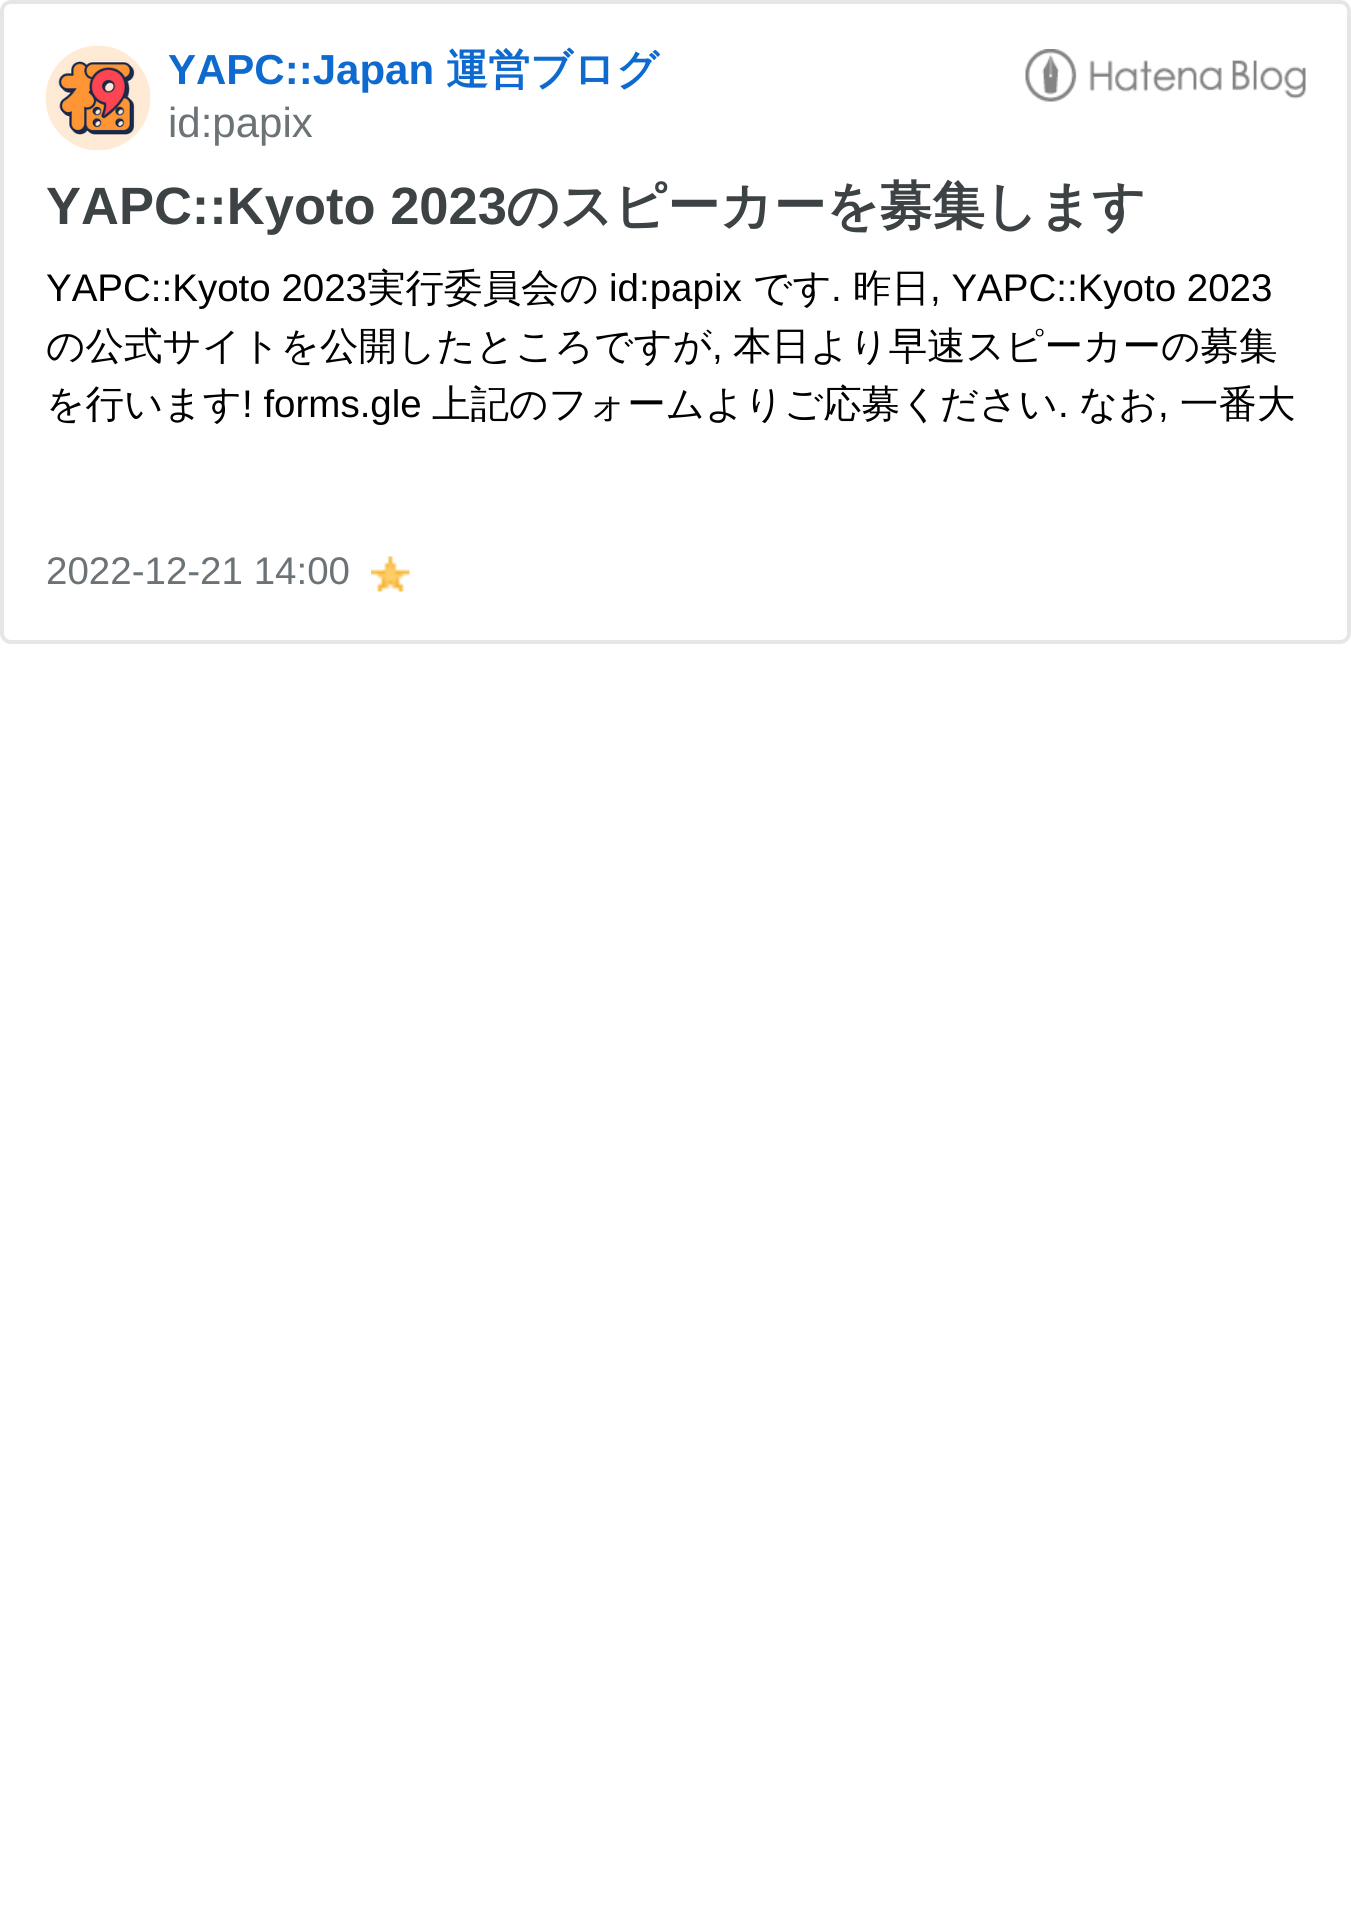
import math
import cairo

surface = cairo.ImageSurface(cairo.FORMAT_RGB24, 1351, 1923)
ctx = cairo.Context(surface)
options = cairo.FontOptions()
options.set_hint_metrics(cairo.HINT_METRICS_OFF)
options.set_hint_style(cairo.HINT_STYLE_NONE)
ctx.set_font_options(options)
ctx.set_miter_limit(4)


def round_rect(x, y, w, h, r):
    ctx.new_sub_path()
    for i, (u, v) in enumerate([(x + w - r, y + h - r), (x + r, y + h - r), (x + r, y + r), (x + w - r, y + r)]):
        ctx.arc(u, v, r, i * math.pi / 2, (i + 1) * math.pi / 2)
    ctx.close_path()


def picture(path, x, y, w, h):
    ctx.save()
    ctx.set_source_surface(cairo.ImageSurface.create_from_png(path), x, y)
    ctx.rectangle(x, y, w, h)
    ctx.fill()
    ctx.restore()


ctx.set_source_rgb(1, 1, 1)
ctx.paint()
round_rect(2, 2, 1347, 640, 9)
ctx.set_source_rgb(0.902, 0.902, 0.902)
ctx.set_line_width(4)
ctx.stroke()
picture("img1.png", 45, 45, 106, 106)
ctx.select_font_face("Liberation Sans", cairo.FONT_SLANT_NORMAL, cairo.FONT_WEIGHT_BOLD)
ctx.set_font_size(42)
ctx.set_source_rgb(0.055, 0.416, 0.808)
ctx.move_to(168, 84)
ctx.show_text("YAPC::Japan")
ctx.select_font_face("WenQuanYi Zen Hei", cairo.FONT_SLANT_NORMAL, cairo.FONT_WEIGHT_BOLD)
ctx.move_to(446, 84)
ctx.show_text("運営ブログ")
picture("img2.png", 1025, 49, 281, 53)
ctx.select_font_face("Liberation Sans")
ctx.set_source_rgb(0.42, 0.451, 0.467)
ctx.move_to(168, 137)
ctx.show_text("id:papix")
ctx.select_font_face("Liberation Sans", cairo.FONT_SLANT_NORMAL, cairo.FONT_WEIGHT_BOLD)
ctx.set_font_size(52.5)
ctx.set_source_rgb(0.239, 0.259, 0.271)
ctx.move_to(46, 224)
ctx.show_text("YAPC::Kyoto 2023")
ctx.select_font_face("WenQuanYi Zen Hei", cairo.FONT_SLANT_NORMAL, cairo.FONT_WEIGHT_BOLD)
ctx.move_to(506, 224)
ctx.show_text("のスピーカーを募集します")
ctx.select_font_face("Liberation Sans")
ctx.set_font_size(38.5)
ctx.set_source_rgb(0, 0, 0)
ctx.move_to(46, 301)
ctx.show_text("YAPC::Kyoto 2023")
ctx.select_font_face("WenQuanYi Zen Hei Medium")
ctx.move_to(367, 301)
ctx.show_text("実行委員会の")
ctx.select_font_face("Liberation Sans")
ctx.move_to(609, 301)
ctx.show_text("id:papix")
ctx.select_font_face("WenQuanYi Zen Hei Medium")
ctx.move_to(753, 301)
ctx.show_text("です")
ctx.select_font_face("Liberation Sans")
ctx.move_to(831, 301)
ctx.show_text(".")
ctx.select_font_face("WenQuanYi Zen Hei Medium")
ctx.move_to(853, 301)
ctx.show_text("昨日")
ctx.select_font_face("Liberation Sans")
ctx.move_to(930, 301)
ctx.show_text(", YAPC::Kyoto 2023")
ctx.select_font_face("WenQuanYi Zen Hei Medium")
ctx.move_to(46, 359)
ctx.show_text("の公式サイトを公開したところですが")
ctx.select_font_face("Liberation Sans")
ctx.move_to(712, 359)
ctx.show_text(",")
ctx.select_font_face("WenQuanYi Zen Hei Medium")
ctx.move_to(733, 359)
ctx.show_text("本日より早速スピーカーの募集")
ctx.move_to(46, 417)
ctx.show_text("を行います")
ctx.select_font_face("Liberation Sans")
ctx.move_to(242, 417)
ctx.show_text("! forms.gle")
ctx.select_font_face("WenQuanYi Zen Hei Medium")
ctx.move_to(432, 417)
ctx.show_text("上記のフォームよりご応募ください")
ctx.select_font_face("Liberation Sans")
ctx.move_to(1058, 417)
ctx.show_text(".")
ctx.select_font_face("WenQuanYi Zen Hei Medium")
ctx.move_to(1079, 417)
ctx.show_text("なお")
ctx.select_font_face("Liberation Sans")
ctx.move_to(1158, 417)
ctx.show_text(",")
ctx.select_font_face("WenQuanYi Zen Hei Medium")
ctx.move_to(1180, 417)
ctx.show_text("一番大")
ctx.select_font_face("Liberation Sans")
ctx.set_source_rgb(0.42, 0.451, 0.467)
ctx.move_to(46, 584)
ctx.show_text("2022-12-21 14:00")
picture("img3.png", 371, 556, 39, 36)
surface.write_to_png("page.png")
